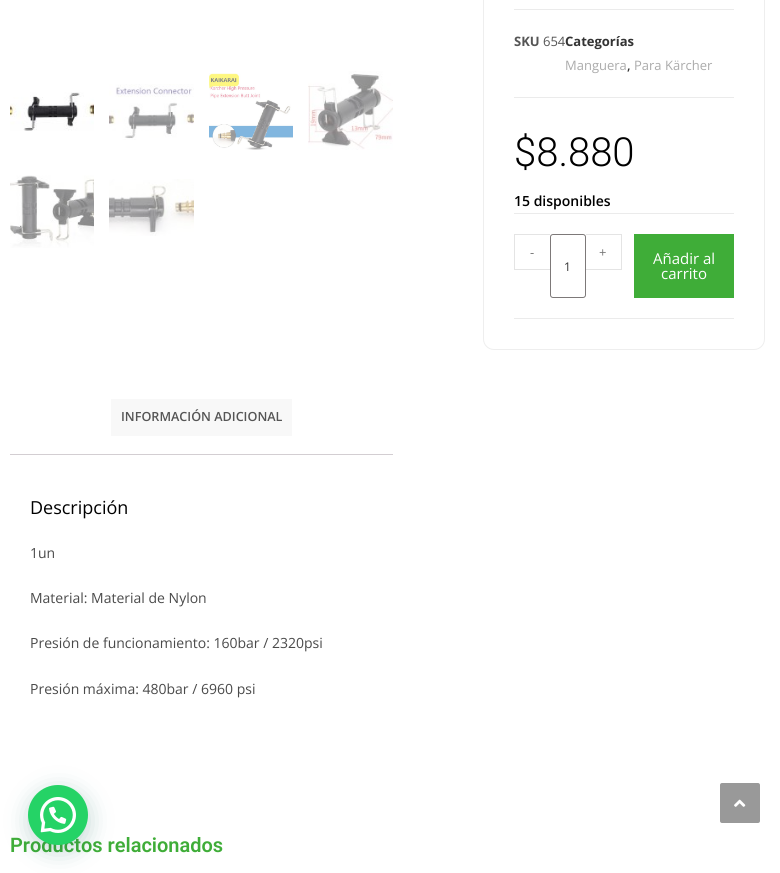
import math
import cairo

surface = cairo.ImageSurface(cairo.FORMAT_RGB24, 780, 873)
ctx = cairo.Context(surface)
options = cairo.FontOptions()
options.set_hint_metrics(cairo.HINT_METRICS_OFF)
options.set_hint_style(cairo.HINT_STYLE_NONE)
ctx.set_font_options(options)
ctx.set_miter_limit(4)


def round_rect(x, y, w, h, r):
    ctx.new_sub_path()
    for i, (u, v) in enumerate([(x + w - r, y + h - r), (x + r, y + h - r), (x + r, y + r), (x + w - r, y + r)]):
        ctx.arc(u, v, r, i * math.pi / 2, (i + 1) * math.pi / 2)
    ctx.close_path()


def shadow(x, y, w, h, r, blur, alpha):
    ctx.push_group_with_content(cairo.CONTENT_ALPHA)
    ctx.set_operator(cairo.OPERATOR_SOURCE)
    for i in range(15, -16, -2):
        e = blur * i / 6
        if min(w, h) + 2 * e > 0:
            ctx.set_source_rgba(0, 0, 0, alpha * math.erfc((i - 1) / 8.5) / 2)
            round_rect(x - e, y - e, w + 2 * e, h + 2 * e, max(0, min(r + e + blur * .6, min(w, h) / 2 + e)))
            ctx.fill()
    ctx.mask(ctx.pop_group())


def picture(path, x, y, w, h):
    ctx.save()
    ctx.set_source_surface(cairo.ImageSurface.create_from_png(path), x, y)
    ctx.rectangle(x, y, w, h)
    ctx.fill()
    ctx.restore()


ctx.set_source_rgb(1, 1, 1)
ctx.paint()
picture("img1.png", 10, 92, 84, 39)
picture("img2.png", 109, 84, 85, 56)
picture("img3.png", 209, 73, 84, 77)
picture("img4.png", 308, 71, 85, 79)
picture("img5.png", 10, 175, 84, 73)
picture("img6.png", 109, 179, 85, 57)
round_rect(483.5, -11.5, 281, 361, 10.5)
ctx.set_source_rgb(0.933, 0.933, 0.933)
ctx.set_line_width(1)
ctx.stroke()
ctx.set_source_rgb(0.918, 0.918, 0.918)
ctx.rectangle(514, 9, 220, 1)
ctx.fill()
ctx.rectangle(514, 97, 220, 1)
ctx.fill()
ctx.select_font_face("Open Sans", cairo.FONT_SLANT_NORMAL, cairo.FONT_WEIGHT_BOLD)
ctx.set_font_size(13)
ctx.set_source_rgb(0.333, 0.333, 0.333)
ctx.move_to(514, 46)
ctx.show_text("SKU")
ctx.select_font_face("Open Sans")
ctx.move_to(543, 46)
ctx.show_text("654")
ctx.select_font_face("Open Sans", cairo.FONT_SLANT_NORMAL, cairo.FONT_WEIGHT_BOLD)
ctx.set_source_rgb(0.2, 0.2, 0.2)
ctx.move_to(565, 46)
ctx.show_text("Categorías")
ctx.select_font_face("Open Sans")
ctx.set_source_rgb(0.671, 0.671, 0.671)
ctx.move_to(565, 70)
ctx.show_text("Manguera")
ctx.select_font_face("Open Sans SemiBold")
ctx.set_source_rgb(0.2, 0.2, 0.2)
ctx.move_to(627, 70)
ctx.show_text(",")
ctx.select_font_face("Open Sans")
ctx.set_source_rgb(0.671, 0.671, 0.671)
ctx.move_to(634, 70)
ctx.show_text("Para Kärcher")
ctx.select_font_face("Roboto Light")
ctx.set_font_size(40)
ctx.set_source_rgb(0, 0, 0)
ctx.move_to(514, 166)
ctx.show_text("$8.880")
ctx.select_font_face("Open Sans SemiBold")
ctx.set_font_size(14)
ctx.move_to(514, 206)
ctx.show_text("15 disponibles")
ctx.set_source_rgb(0.918, 0.918, 0.918)
ctx.rectangle(514, 213, 220, 1)
ctx.fill()
ctx.rectangle(514, 318, 220, 1)
ctx.fill()
ctx.set_source_rgb(0.894, 0.894, 0.894)
ctx.rectangle(514, 234, 36, 1)
ctx.fill()
ctx.rectangle(514, 269, 36, 1)
ctx.fill()
ctx.rectangle(514, 234, 1, 36)
ctx.fill()
ctx.select_font_face("Open Sans")
ctx.set_font_size(13)
ctx.set_source_rgb(0.467, 0.467, 0.467)
ctx.move_to(530, 257)
ctx.show_text("-")
ctx.set_source_rgb(0.894, 0.894, 0.894)
ctx.rectangle(586, 234, 36, 1)
ctx.fill()
ctx.rectangle(621, 234, 1, 36)
ctx.fill()
ctx.rectangle(586, 269, 36, 1)
ctx.fill()
ctx.set_source_rgb(0.467, 0.467, 0.467)
ctx.move_to(599, 257)
ctx.show_text("+")
round_rect(550.5, 234.5, 35, 63, 2.5)
ctx.set_source_rgb(0.49, 0.475, 0.475)
ctx.stroke()
ctx.set_font_size(12)
ctx.set_source_rgb(0.2, 0.2, 0.2)
ctx.move_to(564, 271)
ctx.show_text("1")
ctx.set_source_rgb(0.247, 0.678, 0.22)
ctx.rectangle(634, 234, 100, 64)
ctx.fill()
ctx.set_font_size(15)
ctx.set_source_rgb(1, 1, 1)
ctx.move_to(653, 264)
ctx.show_text("Añadir al")
ctx.move_to(661, 279)
ctx.show_text("carrito")
ctx.set_source_rgb(0.969, 0.969, 0.969)
ctx.rectangle(111, 399, 181, 37)
ctx.fill()
ctx.select_font_face("Open Sans SemiBold")
ctx.set_font_size(12.6)
ctx.set_source_rgb(0.333, 0.333, 0.333)
ctx.move_to(121, 421)
ctx.show_text("INFORMACIÓN ADICIONAL")
ctx.set_source_rgb(0.827, 0.808, 0.824)
ctx.rectangle(10, 454, 383, 1)
ctx.fill()
ctx.select_font_face("Open Sans")
ctx.set_font_size(18)
ctx.set_source_rgb(0, 0, 0)
ctx.move_to(30, 514)
ctx.show_text("Descripción")
ctx.set_font_size(14)
ctx.set_source_rgb(0.29, 0.29, 0.29)
ctx.move_to(30, 558)
ctx.show_text("1un")
ctx.move_to(30, 603)
ctx.show_text("Material: Material de Nylon")
ctx.move_to(30, 648)
ctx.show_text("Presión de funcionamiento: 160bar / 2320psi")
ctx.move_to(30, 694)
ctx.show_text("Presión máxima: 480bar / 6960 psi")
ctx.select_font_face("Roboto SemiBold")
ctx.set_font_size(20)
ctx.set_source_rgb(0.247, 0.678, 0.22)
ctx.move_to(10, 852)
ctx.show_text("Productos relacionados")
ctx.set_source_rgb(0.027, 0.369, 0.329)
shadow(29, 791, 60, 60, 30, 12, 0.24)
ctx.set_source_rgb(0.145, 0.827, 0.4)
ctx.arc(58, 815, 30, 0, 2 * math.pi)
ctx.fill()
picture("img7.png", 40, 797, 36, 36)
ctx.set_source_rgb(0.6, 0.6, 0.6)
round_rect(720, 783, 40, 40, 2)
ctx.fill()
picture("img8.png", 734, 799, 12, 8)
surface.write_to_png("page.png")
